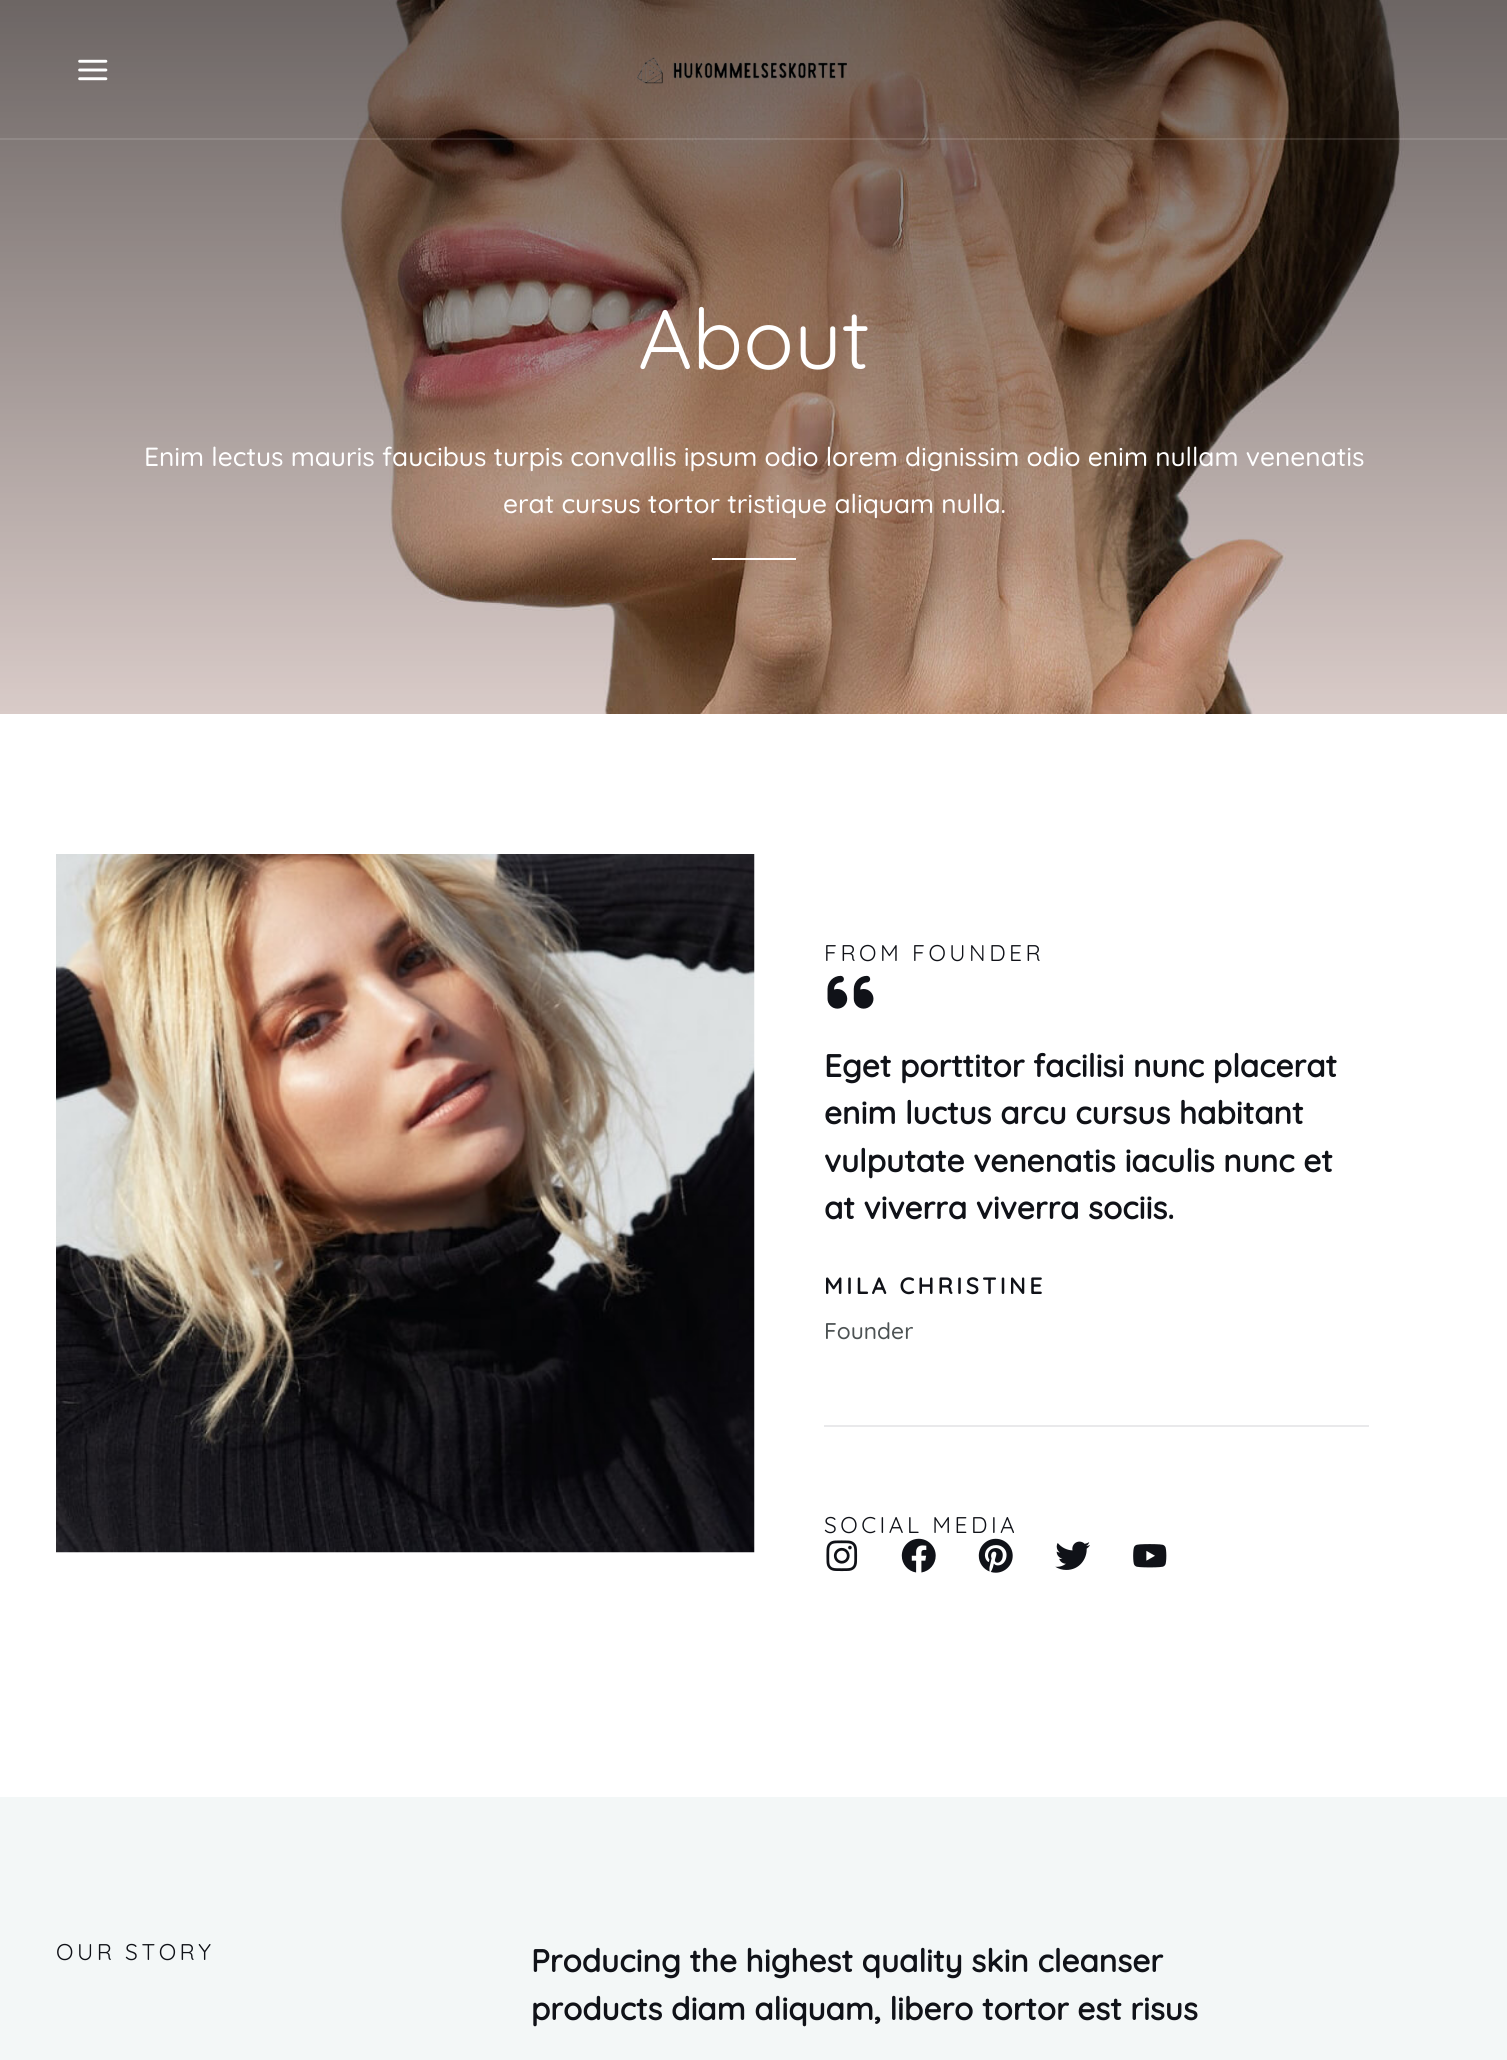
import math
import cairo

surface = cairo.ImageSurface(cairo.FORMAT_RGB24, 1507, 2060)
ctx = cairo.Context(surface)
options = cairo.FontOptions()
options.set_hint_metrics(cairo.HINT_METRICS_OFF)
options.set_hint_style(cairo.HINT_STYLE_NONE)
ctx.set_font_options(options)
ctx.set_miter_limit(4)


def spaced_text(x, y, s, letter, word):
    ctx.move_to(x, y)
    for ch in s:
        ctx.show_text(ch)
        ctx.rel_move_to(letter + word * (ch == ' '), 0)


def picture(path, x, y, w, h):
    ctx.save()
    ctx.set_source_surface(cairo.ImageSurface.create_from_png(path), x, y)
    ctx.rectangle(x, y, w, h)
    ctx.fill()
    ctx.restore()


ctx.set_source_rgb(0.953, 0.965, 0.965)
ctx.paint()
picture("img3.png", 0, 0, 1507, 714)
ctx.set_source_rgba(1, 1, 1, 0.12)
ctx.rectangle(0, 138, 1507, 2)
ctx.fill()
picture("img1.png", 78, 59, 30, 22)
picture("img2.png", 637, 57, 210, 27)
ctx.select_font_face("Quicksand")
ctx.set_font_size(84)
ctx.set_source_rgb(1, 1, 1)
ctx.move_to(638, 369)
ctx.show_text("About")
ctx.select_font_face("Quicksand Medium")
ctx.set_font_size(26.25)
ctx.move_to(144, 466)
ctx.show_text("Enim lectus mauris faucibus turpis convallis ipsum odio lorem dignissim odio enim nullam venenatis")
ctx.move_to(503, 513)
ctx.show_text("erat cursus tortor tristique aliquam nulla.")
ctx.rectangle(712, 558, 84, 2)
ctx.fill()
ctx.rectangle(0, 714, 1507, 1083)
ctx.fill()
picture("img4.png", 56, 854, 699, 699)
ctx.select_font_face("Quicksand")
ctx.set_font_size(22.75)
ctx.set_source_rgb(0.063, 0.071, 0.094)
spaced_text(824, 961, "FROM FOUNDER", 3.5, 0)
picture("img5.png", 827, 975, 47, 34)
ctx.select_font_face("Quicksand", cairo.FONT_SLANT_NORMAL, cairo.FONT_WEIGHT_BOLD)
ctx.set_font_size(31.5)
ctx.move_to(824, 1077)
ctx.show_text("Eget porttitor facilisi nunc placerat")
ctx.move_to(824, 1124)
ctx.show_text("enim luctus arcu cursus habitant")
ctx.move_to(824, 1172)
ctx.show_text("vulputate venenatis iaculis nunc et")
ctx.move_to(824, 1219)
ctx.show_text("at viverra viverra sociis.")
ctx.set_font_size(22.75)
spaced_text(824, 1294, "MILA CHRISTINE", 3.5, 0)
ctx.select_font_face("Quicksand Medium")
ctx.set_source_rgb(0.298, 0.322, 0.325)
ctx.move_to(824, 1339)
ctx.show_text("Founder")
ctx.set_source_rgb(0.914, 0.914, 0.918)
ctx.rectangle(824, 1425, 545, 2)
ctx.fill()
ctx.select_font_face("Quicksand")
ctx.set_source_rgb(0.063, 0.071, 0.094)
spaced_text(824, 1533, "SOCIAL MEDIA", 3.5, 0)
picture("img6.png", 826, 1540, 32, 32)
picture("img7.png", 901, 1538, 35, 35)
picture("img8.png", 978, 1538, 35, 35)
picture("img9.png", 1055, 1541, 35, 29)
picture("img10.png", 1133, 1544, 34, 24)
spaced_text(56, 1960, "OUR STORY", 3.5, 0)
ctx.select_font_face("Quicksand", cairo.FONT_SLANT_NORMAL, cairo.FONT_WEIGHT_BOLD)
ctx.set_font_size(31.5)
ctx.move_to(531, 1972)
ctx.show_text("Producing the highest quality skin cleanser")
ctx.move_to(531, 2020)
ctx.show_text("products diam aliquam, libero tortor est risus")
surface.write_to_png("page.png")
